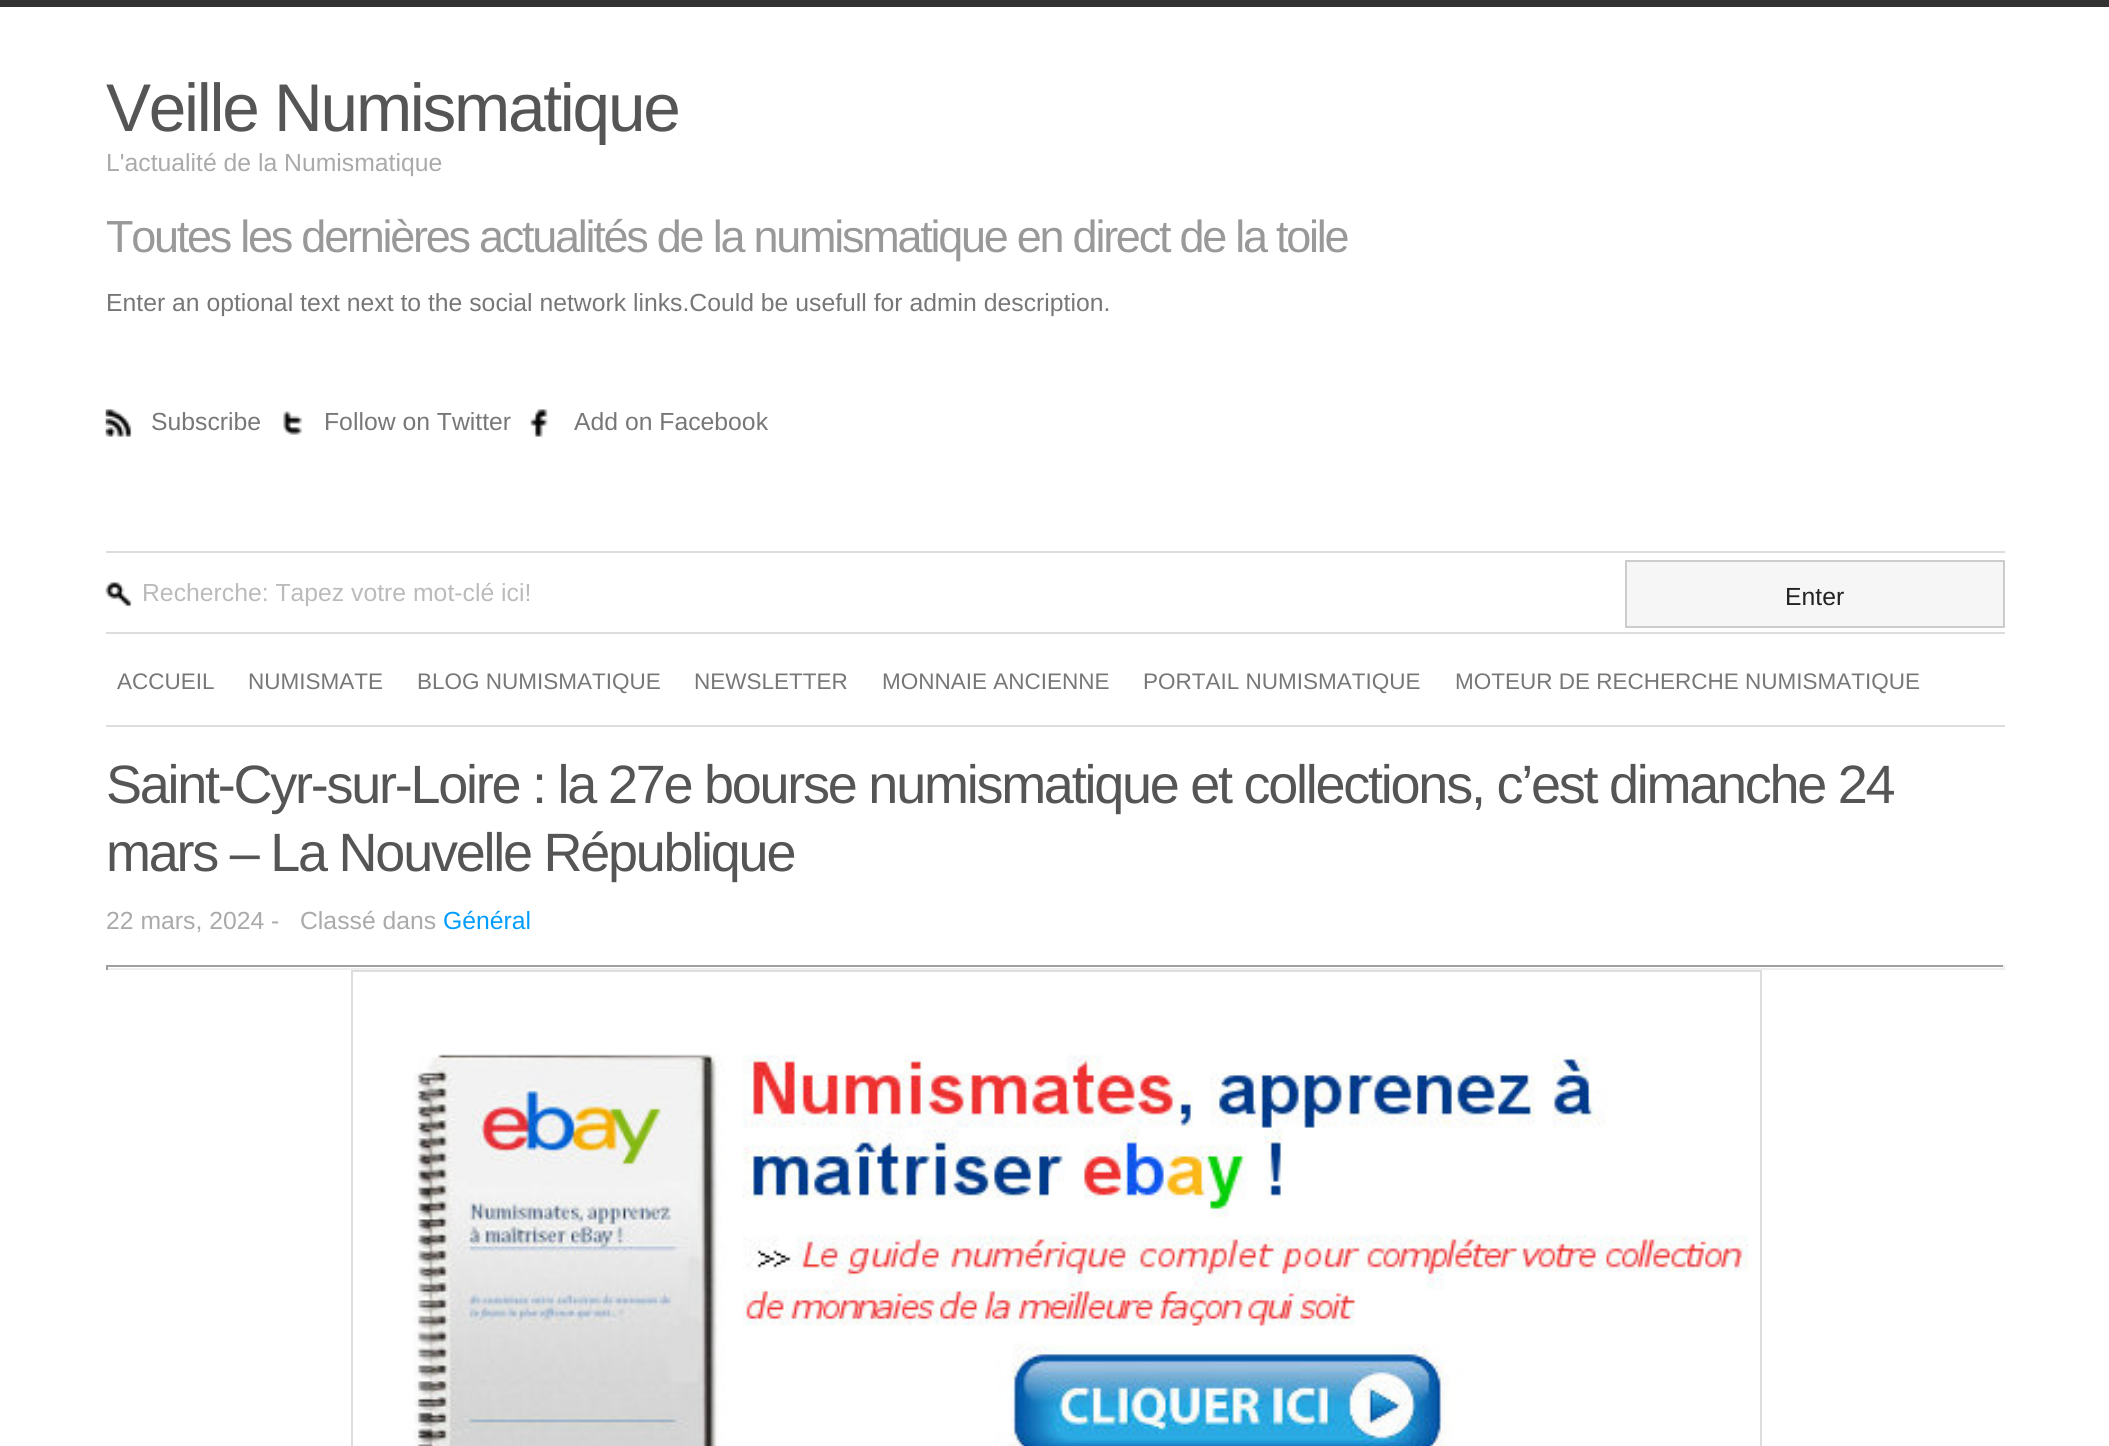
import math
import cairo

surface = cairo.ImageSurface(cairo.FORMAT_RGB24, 2109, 1446)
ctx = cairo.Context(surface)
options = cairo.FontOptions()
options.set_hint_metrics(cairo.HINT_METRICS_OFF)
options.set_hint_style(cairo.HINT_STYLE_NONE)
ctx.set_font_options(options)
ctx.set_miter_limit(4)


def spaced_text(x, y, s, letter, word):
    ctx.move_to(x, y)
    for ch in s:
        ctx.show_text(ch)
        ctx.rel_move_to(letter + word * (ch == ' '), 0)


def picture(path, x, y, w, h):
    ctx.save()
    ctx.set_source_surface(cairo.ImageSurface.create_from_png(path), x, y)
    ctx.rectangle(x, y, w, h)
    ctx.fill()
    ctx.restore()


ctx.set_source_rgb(1, 1, 1)
ctx.paint()
ctx.set_source_rgb(0.2, 0.2, 0.2)
ctx.rectangle(0, 0, 2109, 7)
ctx.fill()
ctx.select_font_face("Liberation Sans")
ctx.set_font_size(67.5)
ctx.set_source_rgb(0.333, 0.333, 0.333)
spaced_text(106, 131, "Veille Numismatique", -2.25, 0)
ctx.set_font_size(24.75)
ctx.set_source_rgb(0.667, 0.667, 0.667)
ctx.move_to(106, 171)
ctx.show_text("L'actualité de la Numismatique")
ctx.set_font_size(45)
ctx.set_source_rgb(0.6, 0.6, 0.6)
spaced_text(106, 252, "Toutes les dernières actualités de la numismatique en direct de la toile", -2.25, 0)
ctx.set_font_size(24.75)
ctx.set_source_rgb(0.467, 0.467, 0.467)
ctx.move_to(106, 311)
ctx.show_text("Enter an optional text next to the social network links.Could be usefull for admin description.")
picture("img1.png", 105, 409, 27, 28)
ctx.move_to(151, 430)
ctx.show_text("Subscribe")
picture("img2.png", 283, 411, 20, 24)
ctx.move_to(324, 430)
ctx.show_text("Follow on Twitter")
picture("img3.png", 530, 409, 18, 28)
ctx.move_to(574, 430)
ctx.show_text("Add on Facebook")
ctx.set_source_rgb(0.867, 0.867, 0.867)
ctx.rectangle(106, 551, 1899, 2)
ctx.fill()
picture("img4.png", 105, 582, 27, 26)
ctx.set_source_rgb(0.733, 0.733, 0.733)
ctx.move_to(142, 601)
ctx.show_text("Recherche: Tapez votre mot-clé ici!")
ctx.set_source_rgb(0.961, 0.961, 0.961)
ctx.rectangle(1626, 561, 378, 66)
ctx.fill_preserve()
ctx.set_source_rgb(0.8, 0.8, 0.8)
ctx.stroke()
ctx.set_source_rgb(0.133, 0.133, 0.133)
ctx.move_to(1785, 605)
ctx.show_text("Enter")
ctx.set_source_rgb(0.867, 0.867, 0.867)
ctx.rectangle(106, 632, 1899, 2)
ctx.fill()
ctx.rectangle(106, 725, 1899, 2)
ctx.fill()
ctx.set_font_size(22.5)
ctx.set_source_rgb(0.467, 0.467, 0.467)
ctx.move_to(117, 689)
ctx.show_text("ACCUEIL")
ctx.move_to(248, 689)
ctx.show_text("NUMISMATE")
ctx.move_to(417, 689)
ctx.show_text("BLOG NUMISMATIQUE")
ctx.move_to(694, 689)
ctx.show_text("NEWSLETTER")
ctx.move_to(882, 689)
ctx.show_text("MONNAIE ANCIENNE")
ctx.move_to(1143, 689)
ctx.show_text("PORTAIL NUMISMATIQUE")
ctx.move_to(1455, 689)
ctx.show_text("MOTEUR DE RECHERCHE NUMISMATIQUE")
ctx.set_font_size(54)
ctx.set_source_rgb(0.333, 0.333, 0.333)
spaced_text(106, 803, "Saint-Cyr-sur-Loire : la 27e bourse numismatique et collections, c’est dimanche 24", -2.25, 0)
spaced_text(106, 871, "mars – La Nouvelle République", -2.25, 0)
ctx.set_font_size(24.75)
ctx.set_source_rgb(0.667, 0.667, 0.667)
ctx.move_to(106, 929)
ctx.show_text("22 mars, 2024 -")
ctx.move_to(300, 929)
ctx.show_text("Classé dans")
ctx.set_source_rgb(0, 0.616, 1)
ctx.move_to(443, 929)
ctx.show_text("Général")
ctx.set_source_rgb(0.624, 0.624, 0.624)
ctx.rectangle(106, 965, 1899, 2)
ctx.fill()
ctx.set_source_rgb(0.933, 0.933, 0.933)
ctx.rectangle(2003, 965, 2, 5)
ctx.fill()
ctx.rectangle(106, 968, 1899, 2)
ctx.fill()
ctx.set_source_rgb(0.624, 0.624, 0.624)
ctx.rectangle(106, 965, 2, 5)
ctx.fill()
ctx.rectangle(352, 971, 1409, 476)
ctx.set_source_rgb(0.867, 0.867, 0.867)
ctx.stroke()
picture("img5.png", 413, 1054, 1336, 392)
surface.write_to_png("page.png")
